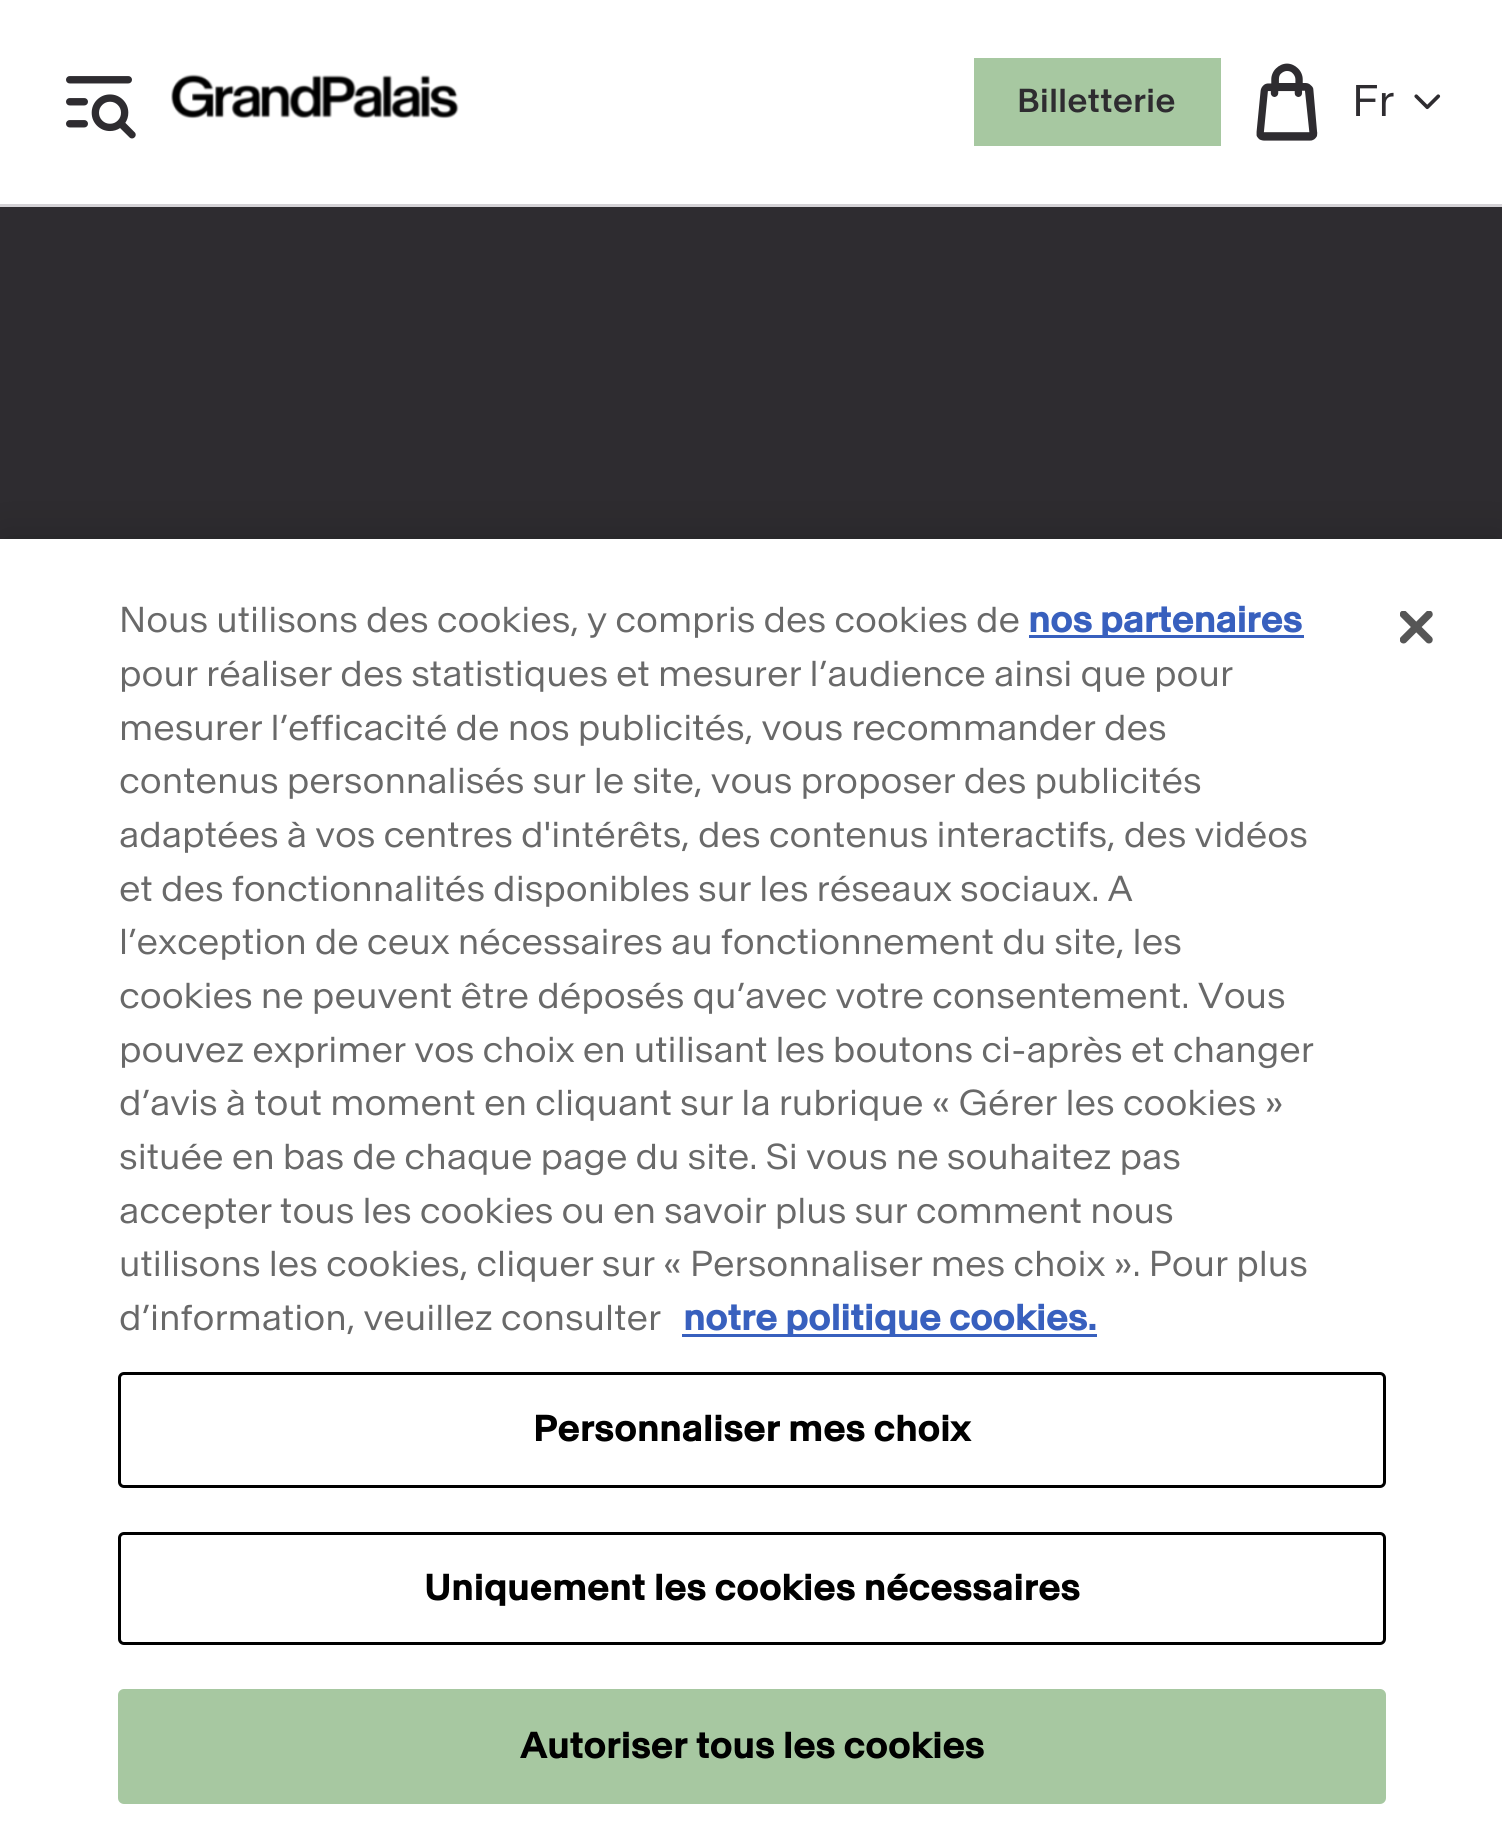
import math
import cairo

surface = cairo.ImageSurface(cairo.FORMAT_RGB24, 1502, 1848)
ctx = cairo.Context(surface)
options = cairo.FontOptions()
options.set_hint_metrics(cairo.HINT_METRICS_OFF)
options.set_hint_style(cairo.HINT_STYLE_NONE)
ctx.set_font_options(options)
ctx.set_miter_limit(4)


def spaced_text(x, y, s, letter, word):
    ctx.move_to(x, y)
    for ch in s:
        ctx.show_text(ch)
        ctx.rel_move_to(letter + word * (ch == ' '), 0)


def round_rect(x, y, w, h, r):
    ctx.new_sub_path()
    for i, (u, v) in enumerate([(x + w - r, y + h - r), (x + r, y + h - r), (x + r, y + r), (x + w - r, y + r)]):
        ctx.arc(u, v, r, i * math.pi / 2, (i + 1) * math.pi / 2)
    ctx.close_path()


def shadow(x, y, w, h, r, blur, alpha):
    ctx.push_group_with_content(cairo.CONTENT_ALPHA)
    ctx.set_operator(cairo.OPERATOR_SOURCE)
    for i in range(15, -16, -2):
        e = blur * i / 6
        if min(w, h) + 2 * e > 0:
            ctx.set_source_rgba(0, 0, 0, alpha * math.erfc((i - 1) / 8.5) / 2)
            round_rect(x - e, y - e, w + 2 * e, h + 2 * e, max(0, min(r + e + blur * .6, min(w, h) / 2 + e)))
            ctx.fill()
    ctx.mask(ctx.pop_group())


def picture(path, x, y, w, h):
    ctx.save()
    ctx.set_source_surface(cairo.ImageSurface.create_from_png(path), x, y)
    ctx.rectangle(x, y, w, h)
    ctx.fill()
    ctx.restore()


ctx.set_source_rgb(1, 1, 1)
ctx.paint()
ctx.set_source_rgb(0.831, 0.824, 0.839)
ctx.rectangle(0, 204, 1502, 3)
ctx.fill()
picture("img1.png", 66, 76, 70, 63)
picture("img2.png", 171, 74, 288, 45)
ctx.set_source_rgb(0.655, 0.784, 0.631)
ctx.rectangle(974, 58, 247, 88)
ctx.fill()
ctx.select_font_face("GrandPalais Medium")
ctx.set_font_size(33)
ctx.set_source_rgb(0.18, 0.173, 0.188)
ctx.move_to(1017, 112)
ctx.show_text("Billetterie")
picture("img3.png", 1256, 63, 62, 78)
ctx.select_font_face("GrandPalais")
ctx.set_font_size(44)
ctx.move_to(1352, 116)
ctx.show_text("Fr")
picture("img4.png", 1414, 94, 27, 16)
ctx.rectangle(0, 207, 1502, 332)
ctx.fill()
ctx.set_source_rgb(0, 0, 0)
shadow(0, 539, 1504, 1309, 0, 25, 0.2)
ctx.set_source_rgb(1, 1, 1)
ctx.rectangle(0, 539, 1502, 1309)
ctx.fill()
ctx.set_font_size(35.75)
ctx.set_source_rgb(0.412, 0.412, 0.412)
ctx.move_to(119, 632)
ctx.show_text("Nous utilisons des cookies, y compris des cookies de")
ctx.set_source_rgb(0.22, 0.376, 0.745)
ctx.rectangle(1029, 635, 275, 3)
ctx.fill()
ctx.select_font_face("GrandPalais", cairo.FONT_SLANT_NORMAL, cairo.FONT_WEIGHT_BOLD)
ctx.move_to(1028, 632)
ctx.show_text("nos partenaires")
ctx.select_font_face("GrandPalais")
ctx.set_source_rgb(0.412, 0.412, 0.412)
ctx.move_to(119, 686)
ctx.show_text("pour réaliser des statistiques et mesurer l’audience ainsi que pour")
ctx.move_to(119, 740)
ctx.show_text("mesurer l’efficacité de nos publicités, vous recommander des")
ctx.move_to(119, 793)
ctx.show_text("contenus personnalisés sur le site, vous proposer des publicités")
ctx.move_to(119, 847)
ctx.show_text("adaptées à vos centres d'intérêts, des contenus interactifs, des vidéos")
ctx.move_to(119, 901)
ctx.show_text("et des fonctionnalités disponibles sur les réseaux sociaux. A")
ctx.move_to(119, 954)
ctx.show_text("l’exception de ceux nécessaires au fonctionnement du site, les")
ctx.move_to(119, 1008)
ctx.show_text("cookies ne peuvent être déposés qu’avec votre consentement. Vous")
ctx.move_to(119, 1062)
ctx.show_text("pouvez exprimer vos choix en utilisant les boutons ci-après et changer")
ctx.move_to(119, 1115)
ctx.show_text("d’avis à tout moment en cliquant sur la rubrique « Gérer les cookies »")
ctx.move_to(119, 1169)
ctx.show_text("située en bas de chaque page du site. Si vous ne souhaitez pas")
ctx.move_to(119, 1223)
ctx.show_text("accepter tous les cookies ou en savoir plus sur comment nous")
ctx.move_to(119, 1276)
ctx.show_text("utilisons les cookies, cliquer sur « Personnaliser mes choix ». Pour plus")
ctx.move_to(119, 1330)
ctx.show_text("d’information, veuillez consulter")
ctx.set_source_rgb(0.22, 0.376, 0.745)
ctx.rectangle(682, 1334, 415, 3)
ctx.fill()
ctx.select_font_face("GrandPalais", cairo.FONT_SLANT_NORMAL, cairo.FONT_WEIGHT_BOLD)
ctx.move_to(683, 1330)
ctx.show_text("notre politique cookies.")
round_rect(119.5, 1373.5, 1265, 113, 4.5)
ctx.set_source_rgb(0, 0, 0)
ctx.set_line_width(3)
ctx.stroke()
spaced_text(533, 1441, "Personnaliser mes choix", 0.35, 0)
round_rect(119.5, 1533.5, 1265, 110, 4.5)
ctx.stroke()
spaced_text(424, 1600, "Uniquement les cookies nécessaires", 0.35, 0)
ctx.set_source_rgb(0.655, 0.784, 0.631)
round_rect(119.5, 1690.5, 1265, 112, 4.5)
ctx.fill_preserve()
ctx.stroke()
ctx.set_source_rgb(0, 0, 0)
spaced_text(520, 1758, "Autoriser tous les cookies", 0.35, 0)
picture("img5.png", 1400, 611, 33, 33)
surface.write_to_png("page.png")
